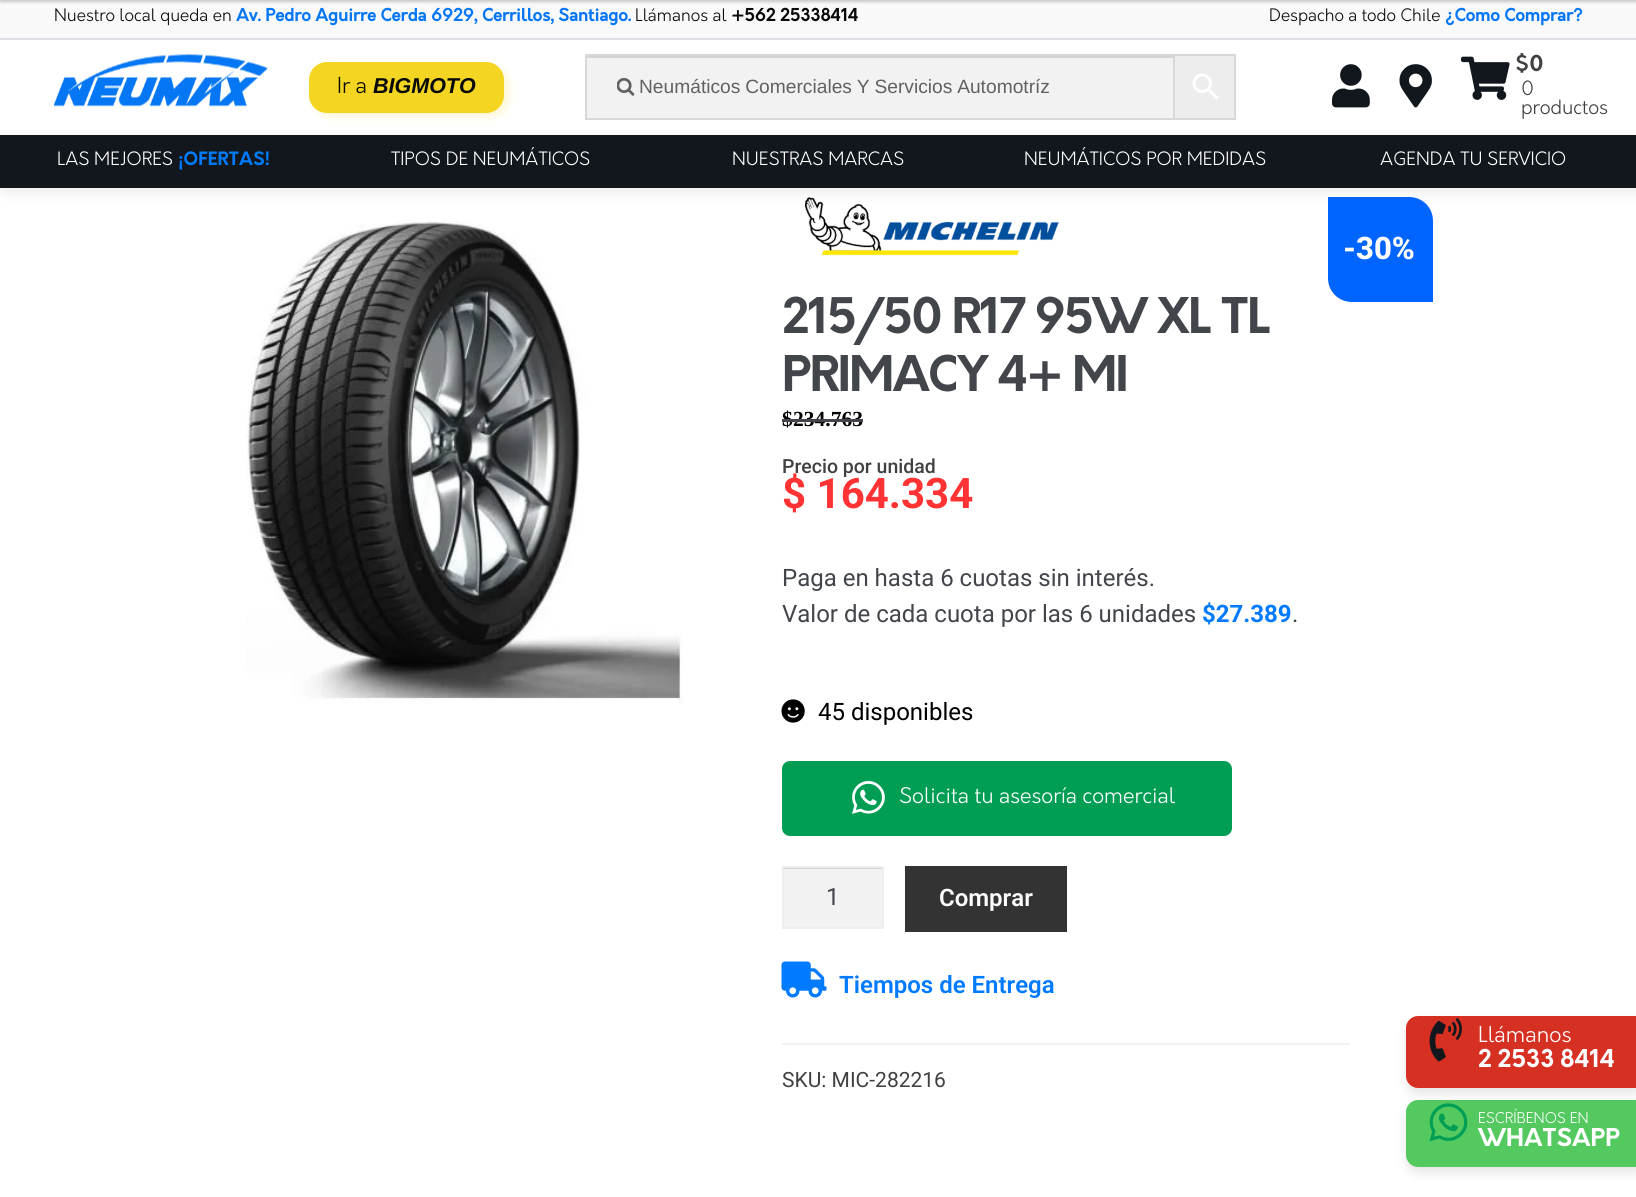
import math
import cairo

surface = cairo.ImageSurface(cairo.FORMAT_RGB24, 1636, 1197)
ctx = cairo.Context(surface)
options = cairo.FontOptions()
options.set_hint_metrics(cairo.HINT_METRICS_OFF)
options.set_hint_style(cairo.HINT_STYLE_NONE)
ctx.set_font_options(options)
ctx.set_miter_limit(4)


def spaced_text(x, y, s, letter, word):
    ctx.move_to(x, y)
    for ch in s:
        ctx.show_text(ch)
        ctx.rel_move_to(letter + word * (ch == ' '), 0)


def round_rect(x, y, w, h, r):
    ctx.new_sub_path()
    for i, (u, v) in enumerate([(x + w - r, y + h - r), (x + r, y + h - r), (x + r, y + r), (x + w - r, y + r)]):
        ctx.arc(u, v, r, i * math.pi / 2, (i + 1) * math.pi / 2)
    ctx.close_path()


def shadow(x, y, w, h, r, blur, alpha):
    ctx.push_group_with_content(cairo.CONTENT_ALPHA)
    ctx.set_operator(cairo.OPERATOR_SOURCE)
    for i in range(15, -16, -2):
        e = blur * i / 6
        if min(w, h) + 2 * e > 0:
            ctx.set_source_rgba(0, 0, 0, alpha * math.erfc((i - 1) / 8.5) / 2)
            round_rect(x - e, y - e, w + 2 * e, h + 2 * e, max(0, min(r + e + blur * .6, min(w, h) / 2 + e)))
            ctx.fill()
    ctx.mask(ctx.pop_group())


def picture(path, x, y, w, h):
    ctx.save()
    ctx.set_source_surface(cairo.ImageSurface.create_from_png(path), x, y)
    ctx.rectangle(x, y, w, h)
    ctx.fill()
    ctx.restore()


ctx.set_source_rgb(1, 1, 1)
ctx.paint()
ctx.set_source_rgb(0.973, 0.976, 0.98)
ctx.rectangle(0, 0, 1636, 38)
ctx.fill()
ctx.set_source_rgb(0, 0, 0)
shadow(0, -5, 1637, 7, 0, 1.5, 0.2)
ctx.set_source_rgb(0.871, 0.886, 0.902)
ctx.rectangle(0, 38, 1636, 2)
ctx.fill()
ctx.select_font_face("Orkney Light")
ctx.set_font_size(16.8)
ctx.set_source_rgb(0.039, 0.039, 0.039)
ctx.move_to(54, 21)
ctx.show_text("Nuestro local queda en")
ctx.select_font_face("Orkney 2", cairo.FONT_SLANT_NORMAL, cairo.FONT_WEIGHT_BOLD)
ctx.set_source_rgb(0.024, 0.467, 0.957)
ctx.move_to(236, 21)
ctx.show_text("Av. Pedro Aguirre Cerda 6929, Cerrillos, Santiago.")
ctx.select_font_face("Orkney Light")
ctx.set_source_rgb(0.039, 0.039, 0.039)
ctx.move_to(635, 21)
ctx.show_text("Llámanos al")
ctx.select_font_face("Orkney 2", cairo.FONT_SLANT_NORMAL, cairo.FONT_WEIGHT_BOLD)
ctx.move_to(731, 21)
ctx.show_text("+562 25338414")
ctx.select_font_face("Orkney Light")
ctx.move_to(1269, 21)
ctx.show_text("Despacho a todo Chile")
ctx.select_font_face("Orkney 2", cairo.FONT_SLANT_NORMAL, cairo.FONT_WEIGHT_BOLD)
ctx.set_source_rgb(0.024, 0.467, 0.957)
ctx.move_to(1445, 21)
ctx.show_text("¿Como Comprar?")
picture("img1.png", 53, 54, 215, 53)
ctx.set_source_rgb(0.957, 0.835, 0.133)
shadow(314, 66, 195, 51, 18, 4, 0.2)
ctx.set_source_rgb(0.957, 0.835, 0.133)
round_rect(309, 62, 195, 51, 18)
ctx.fill()
ctx.select_font_face("Orkney Light")
ctx.set_font_size(21.5)
ctx.set_source_rgb(0.039, 0.039, 0.039)
ctx.move_to(337, 93)
ctx.show_text("Ir a")
ctx.select_font_face("Liberation Sans", cairo.FONT_SLANT_ITALIC, cairo.FONT_WEIGHT_BOLD)
ctx.move_to(373, 93)
ctx.show_text("BIGMOTO")
picture("img8.png", 805, 197, 254, 59)
ctx.set_source_rgb(0, 0.392, 1)
ctx.new_path()
ctx.move_to(1328, 197)
ctx.line_to(1409, 197)
ctx.curve_to(1422.5, 197, 1433, 207.5, 1433, 221)
ctx.line_to(1433, 302)
ctx.line_to(1352, 302)
ctx.curve_to(1338.5, 302, 1328, 291.5, 1328, 278)
ctx.close_path()
ctx.fill()
ctx.set_source_rgb(0, 0, 0)
shadow(3, 140, 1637, 52, 0, 7.5, 0.08)
ctx.set_source_rgb(0.949, 0.949, 0.949)
ctx.rectangle(587, 58, 586, 60)
ctx.fill()
ctx.set_source_rgb(0.831, 0.831, 0.831)
ctx.rectangle(587, 56, 586, 2)
ctx.fill()
ctx.set_source_rgb(0.929, 0.929, 0.929)
ctx.rectangle(1174, 55, 61, 64)
ctx.fill_preserve()
ctx.set_source_rgb(0.847, 0.847, 0.847)
ctx.stroke()
ctx.rectangle(586, 55, 588, 64)
ctx.stroke()
picture("img2.png", 617, 77, 18, 19)
ctx.select_font_face("Liberation Sans")
ctx.set_font_size(19.2)
ctx.set_source_rgb(0.38, 0.38, 0.38)
spaced_text(639, 93, "Neumáticos Comerciales Y Servicios Automotríz", 0, -0.5)
picture("img3.png", 1192, 73, 27, 27)
picture("img4.png", 1332, 64, 38, 44)
picture("img5.png", 1399, 64, 33, 44)
picture("img6.png", 1461, 56, 49, 44)
ctx.select_font_face("Orkney", cairo.FONT_SLANT_NORMAL, cairo.FONT_WEIGHT_BOLD)
ctx.set_font_size(21.5)
ctx.set_source_rgb(0.251, 0.251, 0.251)
ctx.move_to(1515, 71)
ctx.show_text("$0")
ctx.select_font_face("Orkney Light")
ctx.set_font_size(19.2)
ctx.move_to(1521, 95)
ctx.show_text("0")
ctx.move_to(1521, 114)
ctx.show_text("productos")
ctx.set_source_rgb(0.071, 0.09, 0.114)
ctx.rectangle(0, 135, 1636, 53)
ctx.fill()
ctx.set_font_size(18)
ctx.set_source_rgb(1, 1, 1)
ctx.move_to(57, 165)
ctx.show_text("LAS MEJORES")
ctx.select_font_face("Orkney", cairo.FONT_SLANT_NORMAL, cairo.FONT_WEIGHT_BOLD)
ctx.set_source_rgb(0, 0.482, 1)
ctx.move_to(178, 165)
ctx.show_text("¡OFERTAS!")
ctx.select_font_face("Orkney Light")
ctx.set_source_rgb(1, 1, 1)
ctx.move_to(391, 165)
ctx.show_text("TIPOS DE NEUMÁTICOS")
ctx.move_to(732, 165)
ctx.show_text("NUESTRAS MARCAS")
ctx.move_to(1024, 165)
ctx.show_text("NEUMÁTICOS POR MEDIDAS")
ctx.move_to(1380, 165)
ctx.show_text("AGENDA TU SERVICIO")
picture("img7.png", 246, 220, 437, 485)
ctx.select_font_face("Roboto ExtraBold")
ctx.set_font_size(31)
ctx.move_to(1343, 259)
ctx.show_text("-30%")
ctx.select_font_face("Orkney", cairo.FONT_SLANT_NORMAL, cairo.FONT_WEIGHT_BOLD)
ctx.set_font_size(48)
ctx.set_source_rgb(0.259, 0.271, 0.29)
spaced_text(782, 333, "215/50 R17 95W XL TL", -1.5, 0)
spaced_text(782, 391, "PRIMACY 4+ MI", -1.5, 0)
ctx.select_font_face("Liberation Serif", cairo.FONT_SLANT_NORMAL, cairo.FONT_WEIGHT_BOLD)
ctx.set_font_size(21.5)
ctx.set_source_rgb(0, 0, 0)
ctx.move_to(782, 426)
ctx.show_text("$")
ctx.set_source_rgb(0.263, 0.271, 0.294)
ctx.rectangle(782, 419, 12, 3)
ctx.fill()
ctx.set_source_rgb(0, 0, 0)
ctx.move_to(793, 426)
ctx.show_text("234.763")
ctx.set_source_rgb(0.263, 0.271, 0.294)
ctx.rectangle(794, 419, 69, 3)
ctx.fill()
ctx.select_font_face("Roboto Medium")
ctx.set_font_size(19.5)
ctx.set_source_rgb(0.251, 0.251, 0.251)
ctx.move_to(782, 473)
ctx.show_text("Precio por unidad")
ctx.select_font_face("Roboto", cairo.FONT_SLANT_NORMAL, cairo.FONT_WEIGHT_BOLD)
ctx.set_font_size(42)
ctx.set_source_rgb(1, 0.2, 0.2)
ctx.move_to(782, 508)
ctx.show_text("$ 164.334")
ctx.select_font_face("Roboto")
ctx.set_font_size(24)
ctx.set_source_rgb(0.259, 0.271, 0.29)
ctx.move_to(782, 586)
ctx.show_text("Paga en hasta 6 cuotas sin interés.")
ctx.move_to(782, 622)
ctx.show_text("Valor de cada cuota por las 6 unidades")
ctx.select_font_face("Roboto", cairo.FONT_SLANT_NORMAL, cairo.FONT_WEIGHT_BOLD)
ctx.set_source_rgb(0, 0.482, 1)
ctx.move_to(1202, 622)
ctx.show_text("$27.389")
ctx.select_font_face("Roboto")
ctx.set_source_rgb(0.259, 0.271, 0.29)
ctx.move_to(1292, 622)
ctx.show_text(".")
picture("img9.png", 781, 699, 24, 24)
ctx.set_source_rgb(0, 0, 0)
ctx.move_to(818, 720)
ctx.show_text("45 disponibles")
ctx.set_source_rgb(0, 0.62, 0.329)
round_rect(782, 761, 450, 75, 8)
ctx.fill()
picture("img10.png", 852, 781, 33, 33)
ctx.select_font_face("Orkney Light")
ctx.set_font_size(21)
ctx.set_source_rgb(1, 1, 1)
ctx.move_to(899, 803)
ctx.show_text("Solicita tu asesoría comercial")
ctx.set_source_rgb(0.949, 0.949, 0.949)
ctx.rectangle(784, 869, 98, 58)
ctx.fill()
ctx.set_source_rgb(0.831, 0.831, 0.831)
ctx.rectangle(783, 868, 99, 1)
ctx.fill()
ctx.rectangle(783, 867, 100, 61)
ctx.set_source_rgb(0.933, 0.933, 0.933)
ctx.stroke()
ctx.select_font_face("Roboto")
ctx.set_font_size(24)
ctx.set_source_rgb(0.259, 0.271, 0.29)
ctx.move_to(826, 905)
ctx.show_text("1")
ctx.set_source_rgb(0.2, 0.2, 0.2)
ctx.rectangle(905, 866, 162, 66)
ctx.fill()
ctx.select_font_face("Roboto SemiBold")
ctx.set_source_rgb(1, 1, 1)
ctx.move_to(939, 906)
ctx.show_text("Comprar")
picture("img11.png", 781, 961, 46, 37)
ctx.set_source_rgb(0, 0.482, 1)
ctx.move_to(839, 993)
ctx.show_text("Tiempos de Entrega")
ctx.set_source_rgb(0.949, 0.949, 0.949)
ctx.rectangle(782, 1043, 568, 2)
ctx.fill()
ctx.select_font_face("Roboto")
ctx.set_font_size(21)
ctx.set_source_rgb(0.251, 0.251, 0.251)
ctx.move_to(782, 1087)
ctx.show_text("SKU: MIC-282216")
ctx.set_source_rgb(0, 0, 0)
shadow(1406, 1106, 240, 67, 12, 5, 0.1)
ctx.set_source_rgb(0.329, 0.788, 0.373)
ctx.new_path()
ctx.move_to(1418, 1100)
ctx.line_to(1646, 1100)
ctx.line_to(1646, 1167)
ctx.line_to(1418, 1167)
ctx.curve_to(1411.5, 1167, 1406, 1161.5, 1406, 1155)
ctx.line_to(1406, 1112)
ctx.curve_to(1406, 1105.5, 1411.5, 1100, 1418, 1100)
ctx.close_path()
ctx.fill()
picture("img13.png", 1429, 1103, 39, 39)
ctx.set_source_rgb(0, 0, 0)
shadow(1406, 1022, 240, 72, 12, 5, 0.1)
ctx.set_source_rgb(0.839, 0.188, 0.137)
ctx.new_path()
ctx.move_to(1418, 1016)
ctx.line_to(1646, 1016)
ctx.line_to(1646, 1088)
ctx.line_to(1418, 1088)
ctx.curve_to(1411.5, 1088, 1406, 1082.5, 1406, 1076)
ctx.line_to(1406, 1028)
ctx.curve_to(1406, 1021.5, 1411.5, 1016, 1418, 1016)
ctx.close_path()
ctx.fill()
picture("img12.png", 1429, 1018, 33, 44)
ctx.select_font_face("Orkney Light")
ctx.set_font_size(21.5)
ctx.set_source_rgb(1, 1, 1)
ctx.move_to(1478, 1042)
ctx.show_text("Llámanos")
ctx.select_font_face("Orkney", cairo.FONT_SLANT_NORMAL, cairo.FONT_WEIGHT_BOLD)
ctx.set_font_size(24)
ctx.move_to(1478, 1067)
ctx.show_text("2 2533 8414")
ctx.select_font_face("Orkney Light")
ctx.set_font_size(14.5)
ctx.move_to(1478, 1123)
ctx.show_text("ESCRÍBENOS EN")
ctx.select_font_face("Orkney", cairo.FONT_SLANT_NORMAL, cairo.FONT_WEIGHT_BOLD)
ctx.set_font_size(24)
ctx.move_to(1478, 1146)
ctx.show_text("WHATSAPP")
surface.write_to_png("page.png")
